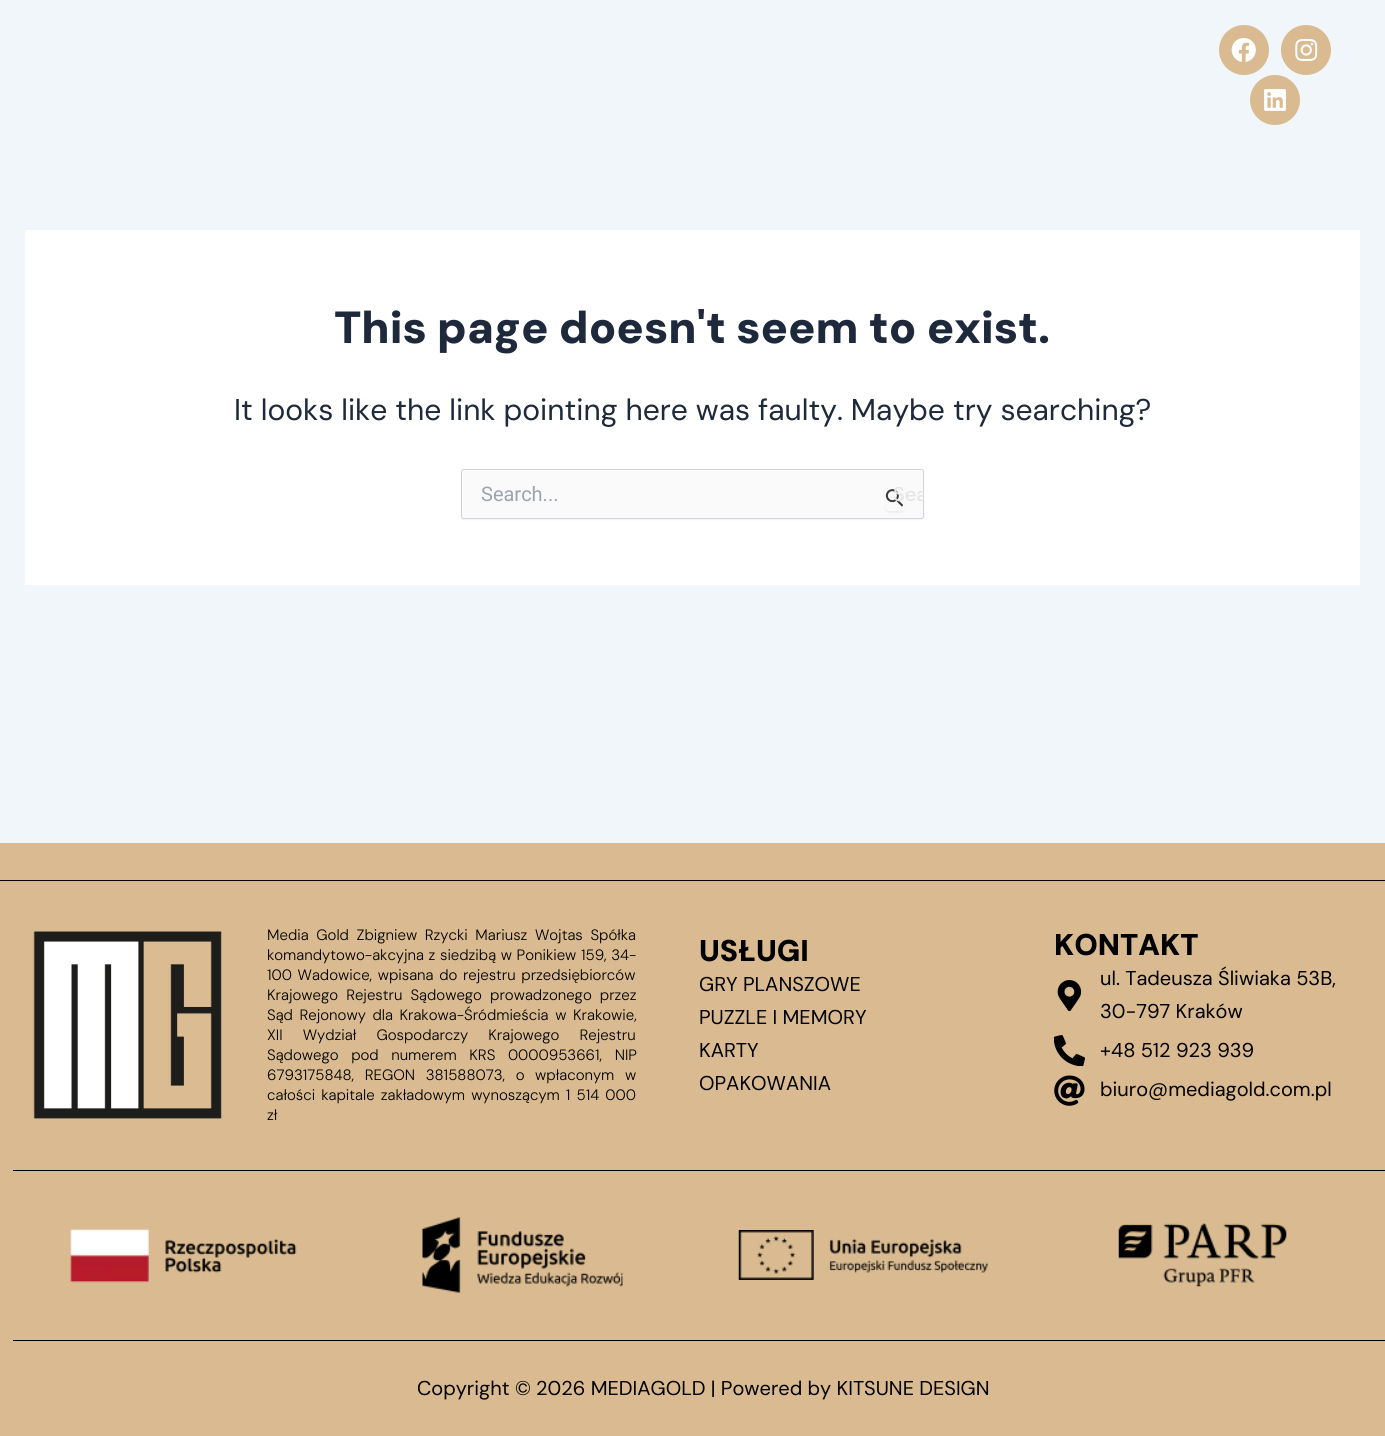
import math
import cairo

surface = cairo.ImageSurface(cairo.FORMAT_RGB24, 1385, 1436)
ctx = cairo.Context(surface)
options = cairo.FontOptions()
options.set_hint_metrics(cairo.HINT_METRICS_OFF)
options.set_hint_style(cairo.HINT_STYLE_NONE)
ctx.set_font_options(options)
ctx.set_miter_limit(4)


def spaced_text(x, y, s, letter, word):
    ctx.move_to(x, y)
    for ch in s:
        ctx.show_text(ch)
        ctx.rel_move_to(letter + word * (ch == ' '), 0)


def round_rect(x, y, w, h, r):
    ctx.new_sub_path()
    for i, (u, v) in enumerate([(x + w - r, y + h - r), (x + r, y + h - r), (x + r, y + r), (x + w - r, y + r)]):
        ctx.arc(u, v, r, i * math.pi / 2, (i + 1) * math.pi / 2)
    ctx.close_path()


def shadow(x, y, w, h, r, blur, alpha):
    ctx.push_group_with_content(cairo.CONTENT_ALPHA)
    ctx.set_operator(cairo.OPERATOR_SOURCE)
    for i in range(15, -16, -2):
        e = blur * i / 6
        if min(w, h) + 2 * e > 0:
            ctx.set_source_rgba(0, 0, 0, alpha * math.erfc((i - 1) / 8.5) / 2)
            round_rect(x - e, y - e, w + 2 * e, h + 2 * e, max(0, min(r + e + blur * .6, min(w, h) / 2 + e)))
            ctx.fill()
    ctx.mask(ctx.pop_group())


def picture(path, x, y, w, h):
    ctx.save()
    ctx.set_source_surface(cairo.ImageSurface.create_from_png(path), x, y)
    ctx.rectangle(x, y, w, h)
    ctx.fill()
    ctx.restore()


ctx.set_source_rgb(0.941, 0.961, 0.98)
ctx.paint()
ctx.set_source_rgb(0.855, 0.733, 0.569)
ctx.arc(1244, 50, 25, 0, 2 * math.pi)
ctx.fill()
picture("img1.png", 1231, 38, 25, 24)
ctx.arc(1306, 50, 25, 0, 2 * math.pi)
ctx.fill()
picture("img2.png", 1295, 39, 23, 22)
ctx.arc(1275, 100, 25, 0, 2 * math.pi)
ctx.fill()
picture("img3.png", 1264, 89, 22, 22)
ctx.set_source_rgb(1, 1, 1)
ctx.rectangle(25, 230, 1335, 355)
ctx.fill()
ctx.select_font_face("DM Sans Black")
ctx.set_font_size(45)
ctx.set_source_rgb(0.118, 0.161, 0.231)
ctx.move_to(334, 343)
ctx.show_text("This page doesn't seem to exist.")
ctx.select_font_face("DM Sans")
ctx.set_font_size(30)
ctx.move_to(234, 420)
ctx.show_text("It looks like the link pointing here was faulty. Maybe try searching?")
ctx.set_source_rgb(0, 0, 0)
shadow(461, 470, 463, 50, 2.5, 1, 0.05)
ctx.set_source_rgb(0.98, 0.98, 0.98)
round_rect(461.5, 469.5, 462, 49, 2)
ctx.fill_preserve()
ctx.set_source_rgb(0.82, 0.835, 0.859)
ctx.set_line_width(1)
ctx.stroke()
ctx.select_font_face("Roboto")
ctx.set_font_size(20)
ctx.set_source_rgb(0.612, 0.639, 0.686)
ctx.move_to(481, 501)
ctx.show_text("Search...")
ctx.save()
ctx.set_fill_rule(cairo.FILL_RULE_EVEN_ODD)
ctx.new_path()
ctx.move_to(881, 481)
ctx.line_to(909, 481)
ctx.line_to(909, 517)
ctx.line_to(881, 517)
ctx.close_path()
ctx.move_to(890, 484)
ctx.line_to(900, 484)
ctx.curve_to(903, 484, 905, 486, 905, 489)
ctx.line_to(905, 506)
ctx.curve_to(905, 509, 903, 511, 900, 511)
ctx.line_to(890, 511)
ctx.curve_to(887, 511, 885, 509, 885, 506)
ctx.line_to(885, 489)
ctx.curve_to(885, 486, 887, 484, 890, 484)
ctx.close_path()
ctx.clip()
ctx.set_source_rgb(0, 0, 0)
shadow(885, 485, 20, 28, 5, 1, 0.05)
ctx.restore()
picture("img4.png", 885, 489, 18, 18)
ctx.save()
round_rect(868, 469, 56, 52, 2.5)
ctx.clip()
ctx.select_font_face("DM Sans Medium")
ctx.set_source_rgb(0.898, 0.898, 0.902)
ctx.move_to(893, 501)
ctx.show_text("Sea")
ctx.restore()
ctx.set_source_rgb(0.855, 0.733, 0.569)
ctx.rectangle(0, 843, 1385, 593)
ctx.fill()
ctx.set_source_rgb(0, 0, 0)
ctx.rectangle(0, 880, 1385, 1)
ctx.fill()
picture("img5.png", 33, 931, 189, 188)
ctx.select_font_face("DM Sans Light")
ctx.set_font_size(15)
spaced_text(267, 940, "Media Gold Zbigniew Rzycki Mariusz Wojtas Spółka", 0, 3.5)
spaced_text(267, 960, "komandytowo-akcyjna z siedzibą w Ponikiew 159, 34-", 0, 0.5)
spaced_text(267, 980, "100 Wadowice, wpisana do rejestru przedsiębiorców", 0, 1.5)
spaced_text(267, 1000, "Krajowego Rejestru Sądowego prowadzonego przez", 0, 4)
spaced_text(267, 1020, "Sąd Rejonowy dla Krakowa-Śródmieścia w Krakowie,", 0, 2.5)
spaced_text(267, 1040, "XII Wydział Gospodarczy Krajowego Rejestru", 0, 16)
spaced_text(267, 1060, "Sądowego pod numerem KRS 0000953661, NIP", 0, 8.5)
spaced_text(267, 1080, "6793175848, REGON 381588073, o wpłaconym w", 0, 6.5)
spaced_text(267, 1100, "całości kapitale zakładowym wynoszącym 1 514 000", 0, 2)
ctx.move_to(267, 1120)
ctx.show_text("zł")
ctx.select_font_face("DM Sans Black")
ctx.set_font_size(30)
ctx.move_to(699, 961)
ctx.show_text("USŁUGI")
ctx.select_font_face("DM Sans")
ctx.set_font_size(20)
ctx.move_to(699, 991)
ctx.show_text("GRY PLANSZOWE")
ctx.move_to(699, 1024)
ctx.show_text("PUZZLE I MEMORY")
ctx.move_to(699, 1057)
ctx.show_text("KARTY")
ctx.move_to(699, 1090)
ctx.show_text("OPAKOWANIA")
ctx.select_font_face("DM Sans Black")
ctx.set_font_size(30)
ctx.move_to(1054, 955)
ctx.show_text("KONTAKT")
picture("img6.png", 1057, 980, 25, 31)
ctx.select_font_face("DM Sans")
ctx.set_font_size(20)
ctx.move_to(1100, 985)
ctx.show_text("ul. Tadeusza Śliwiaka 53B,")
ctx.move_to(1100, 1018)
ctx.show_text("30-797 Kraków")
picture("img7.png", 1054, 1035, 31, 31)
ctx.move_to(1100, 1057)
ctx.show_text("+48 512 923 939")
picture("img8.png", 1054, 1075, 31, 31)
ctx.move_to(1100, 1096)
ctx.show_text("biuro@mediagold.com.pl")
ctx.rectangle(13, 1170, 1372, 1)
ctx.fill()
picture("img9.png", 70, 1228, 227, 55)
picture("img10.png", 422, 1217, 201, 76)
picture("img11.png", 738, 1230, 250, 50)
picture("img12.png", 1118, 1223, 169, 64)
ctx.rectangle(13, 1340, 1372, 1)
ctx.fill()
ctx.move_to(417, 1395)
ctx.show_text("Copyright © 2026 MEDIAGOLD | Powered by KITSUNE DESIGN")
surface.write_to_png("page.png")
